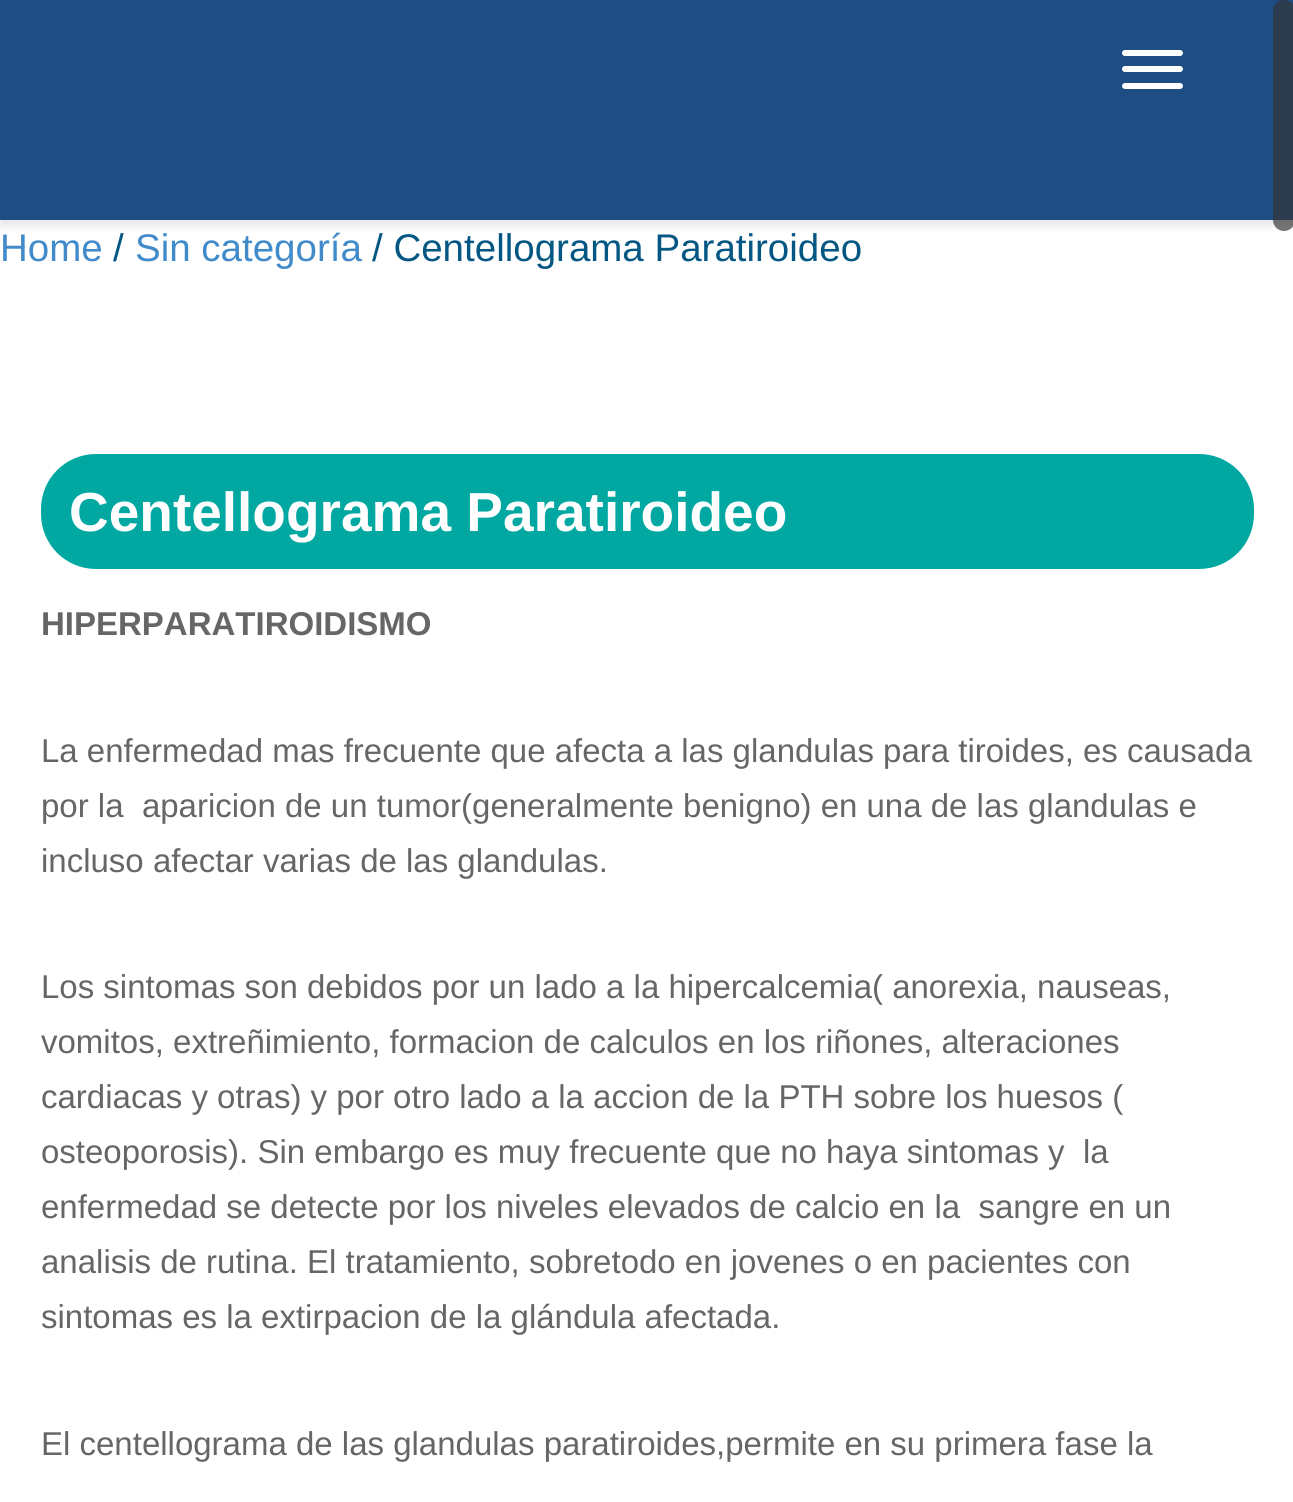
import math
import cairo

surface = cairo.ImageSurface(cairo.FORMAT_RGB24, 1293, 1502)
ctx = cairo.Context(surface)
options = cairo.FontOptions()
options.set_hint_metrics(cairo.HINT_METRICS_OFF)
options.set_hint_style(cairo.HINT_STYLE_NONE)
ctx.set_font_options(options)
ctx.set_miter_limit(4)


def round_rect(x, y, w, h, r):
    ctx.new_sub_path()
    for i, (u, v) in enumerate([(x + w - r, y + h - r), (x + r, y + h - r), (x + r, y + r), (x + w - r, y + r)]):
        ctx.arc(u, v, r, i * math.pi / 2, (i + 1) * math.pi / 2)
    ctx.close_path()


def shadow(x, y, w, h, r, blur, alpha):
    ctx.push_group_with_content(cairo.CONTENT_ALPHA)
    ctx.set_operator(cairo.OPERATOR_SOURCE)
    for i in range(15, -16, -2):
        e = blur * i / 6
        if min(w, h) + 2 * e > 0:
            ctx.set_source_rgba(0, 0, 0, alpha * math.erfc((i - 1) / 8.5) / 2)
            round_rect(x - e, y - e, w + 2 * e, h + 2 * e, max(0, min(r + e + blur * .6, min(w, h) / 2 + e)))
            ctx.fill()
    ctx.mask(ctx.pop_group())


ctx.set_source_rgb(1, 1, 1)
ctx.paint()
ctx.set_source_rgb(0, 0, 0)
shadow(0, 6, 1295, 220, 0, 4, 0.1)
ctx.set_source_rgb(0.114, 0.302, 0.514)
ctx.rectangle(0, 0, 1293, 220)
ctx.fill()
ctx.set_source_rgba(0.2, 0.2, 0.2, 0.67)
round_rect(1273, 0, 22, 231, 11)
ctx.fill()
ctx.set_source_rgb(1, 1, 1)
round_rect(1122, 50, 61, 6, 3)
ctx.fill()
round_rect(1122, 66, 61, 6, 3)
ctx.fill()
round_rect(1122, 83, 61, 6, 3)
ctx.fill()
ctx.select_font_face("Liberation Sans")
ctx.set_font_size(38.5)
ctx.set_source_rgb(0.259, 0.545, 0.792)
ctx.move_to(0, 261)
ctx.show_text("Home")
ctx.set_source_rgb(0.012, 0.341, 0.51)
ctx.move_to(113, 261)
ctx.show_text("/")
ctx.set_source_rgb(0.259, 0.545, 0.792)
ctx.move_to(135, 261)
ctx.show_text("Sin categoría")
ctx.set_source_rgb(0.012, 0.341, 0.51)
ctx.move_to(372, 261)
ctx.show_text("/ Centellograma Paratiroideo")
ctx.set_source_rgb(0, 0.659, 0.631)
round_rect(41, 454, 1213, 115, 55)
ctx.fill()
ctx.select_font_face("Liberation Sans", cairo.FONT_SLANT_NORMAL, cairo.FONT_WEIGHT_BOLD)
ctx.set_font_size(55)
ctx.set_source_rgb(1, 1, 1)
ctx.move_to(69, 531)
ctx.show_text("Centellograma Paratiroideo")
ctx.set_font_size(33)
ctx.set_source_rgb(0.4, 0.4, 0.4)
ctx.move_to(41, 635)
ctx.show_text("HIPERPARATIROIDISMO")
ctx.select_font_face("Liberation Sans")
ctx.move_to(41, 762)
ctx.show_text("La enfermedad mas frecuente que afecta a las glandulas para tiroides, es causada")
ctx.move_to(41, 817)
ctx.show_text("por la  aparicion de un tumor(generalmente benigno) en una de las glandulas e")
ctx.move_to(41, 872)
ctx.show_text("incluso afectar varias de las glandulas.")
ctx.move_to(41, 998)
ctx.show_text("Los sintomas son debidos por un lado a la hipercalcemia( anorexia, nauseas,")
ctx.move_to(41, 1053)
ctx.show_text("vomitos, extreñimiento, formacion de calculos en los riñones, alteraciones")
ctx.move_to(41, 1108)
ctx.show_text("cardiacas y otras) y por otro lado a la accion de la PTH sobre los huesos (")
ctx.move_to(41, 1163)
ctx.show_text("osteoporosis). Sin embargo es muy frecuente que no haya sintomas y  la")
ctx.move_to(41, 1218)
ctx.show_text("enfermedad se detecte por los niveles elevados de calcio en la  sangre en un")
ctx.move_to(41, 1273)
ctx.show_text("analisis de rutina. El tratamiento, sobretodo en jovenes o en pacientes con")
ctx.move_to(41, 1328)
ctx.show_text("sintomas es la extirpacion de la glándula afectada.")
ctx.move_to(41, 1455)
ctx.show_text("El centellograma de las glandulas paratiroides,permite en su primera fase la")
surface.write_to_png("page.png")
